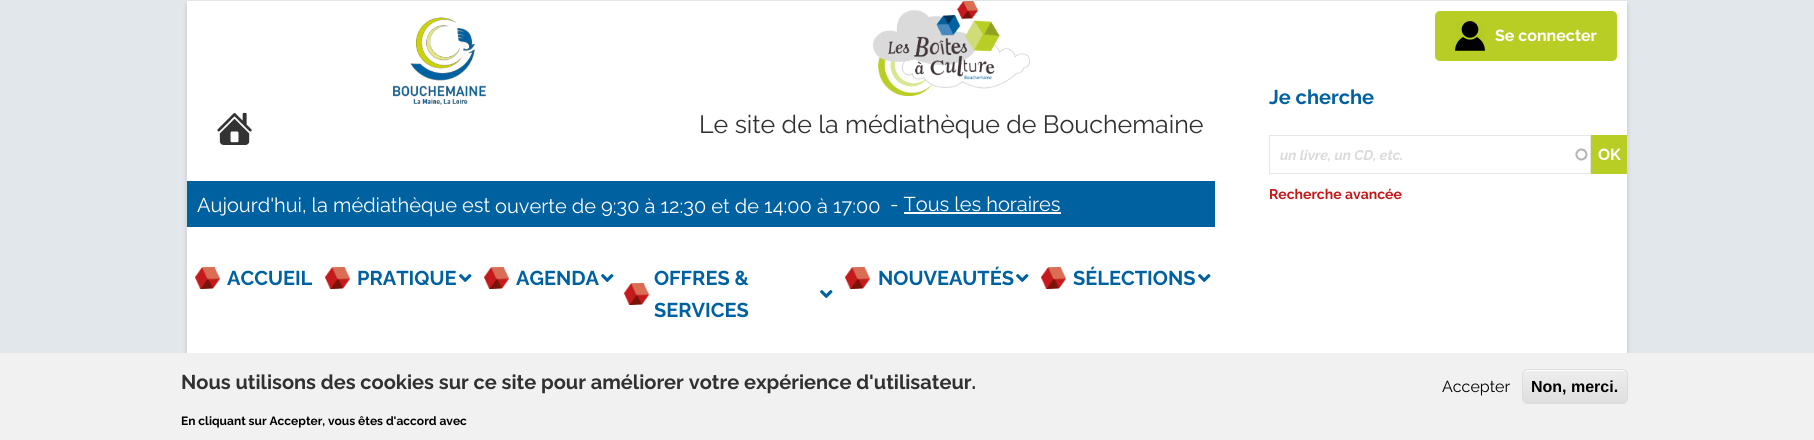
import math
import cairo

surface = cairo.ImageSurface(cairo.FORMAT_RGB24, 1814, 440)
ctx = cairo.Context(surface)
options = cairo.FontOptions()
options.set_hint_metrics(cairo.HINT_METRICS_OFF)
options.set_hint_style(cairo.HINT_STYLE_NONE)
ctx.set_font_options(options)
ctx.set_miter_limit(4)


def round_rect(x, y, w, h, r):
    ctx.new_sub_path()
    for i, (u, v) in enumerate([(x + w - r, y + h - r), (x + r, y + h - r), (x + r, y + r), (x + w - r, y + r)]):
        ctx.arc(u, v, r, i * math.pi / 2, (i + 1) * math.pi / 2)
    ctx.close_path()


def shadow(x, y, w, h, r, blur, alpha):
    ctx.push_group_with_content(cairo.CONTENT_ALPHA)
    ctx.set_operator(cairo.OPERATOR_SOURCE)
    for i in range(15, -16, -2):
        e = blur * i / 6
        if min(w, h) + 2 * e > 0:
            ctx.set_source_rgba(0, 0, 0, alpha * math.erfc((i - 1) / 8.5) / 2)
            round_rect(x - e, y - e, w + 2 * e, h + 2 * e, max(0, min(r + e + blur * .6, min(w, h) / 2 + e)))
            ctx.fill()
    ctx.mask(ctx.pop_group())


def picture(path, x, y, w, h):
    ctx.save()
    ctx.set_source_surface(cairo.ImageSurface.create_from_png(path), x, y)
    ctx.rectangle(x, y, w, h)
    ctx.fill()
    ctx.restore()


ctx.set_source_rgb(0.886, 0.906, 0.918)
ctx.paint()
ctx.set_source_rgb(0, 0, 0)
shadow(187, 5, 1440, 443, 0, 2.5, 0.15)
ctx.set_source_rgb(1, 1, 1)
ctx.rectangle(187, 1, 1440, 352)
ctx.fill()
picture("img1.png", 393, 17, 93, 88)
ctx.set_source_rgb(0.722, 0.808, 0.145)
round_rect(1435, 11, 182, 50, 5)
ctx.fill()
picture("img2.png", 1455, 21, 30, 30)
ctx.select_font_face("Raleway", cairo.FONT_SLANT_NORMAL, cairo.FONT_WEIGHT_BOLD)
ctx.set_font_size(16)
ctx.set_source_rgb(1, 1, 1)
ctx.move_to(1495, 41)
ctx.show_text("Se connecter")
picture("img3.png", 217, 112, 35, 33)
picture("img4.png", 873, 1, 157, 95)
ctx.select_font_face("Raleway")
ctx.set_font_size(25)
ctx.set_source_rgb(0.192, 0.192, 0.192)
ctx.move_to(699, 133)
ctx.show_text("Le site de la médiathèque de Bouchemaine")
ctx.select_font_face("Raleway", cairo.FONT_SLANT_NORMAL, cairo.FONT_WEIGHT_BOLD)
ctx.set_font_size(20)
ctx.set_source_rgb(0, 0.38, 0.631)
ctx.move_to(1269, 104)
ctx.show_text("Je cherche")
picture("img5.png", 1575, 148, 13, 13)
ctx.rectangle(1269.5, 135.5, 321, 38)
ctx.set_source_rgb(0.902, 0.902, 0.902)
ctx.set_line_width(1)
ctx.stroke()
ctx.select_font_face("Raleway", cairo.FONT_SLANT_ITALIC, cairo.FONT_WEIGHT_BOLD)
ctx.set_font_size(14)
ctx.set_source_rgb(0.855, 0.855, 0.855)
ctx.move_to(1280, 160)
ctx.show_text("un livre, un CD, etc.")
ctx.set_source_rgb(0.722, 0.808, 0.145)
ctx.rectangle(1591, 135, 36, 39)
ctx.fill()
ctx.select_font_face("Raleway", cairo.FONT_SLANT_NORMAL, cairo.FONT_WEIGHT_BOLD)
ctx.set_font_size(16)
ctx.set_source_rgb(1, 1, 1)
ctx.move_to(1598, 160)
ctx.show_text("OK")
ctx.set_font_size(14)
ctx.set_source_rgb(0.773, 0.102, 0.106)
ctx.move_to(1269, 199)
ctx.show_text("Recherche avancée")
ctx.set_source_rgb(0, 0.38, 0.631)
ctx.rectangle(187, 181, 1028, 46)
ctx.fill()
ctx.select_font_face("Raleway")
ctx.set_font_size(20)
ctx.set_source_rgb(1, 1, 1)
ctx.move_to(197, 212)
ctx.show_text("Aujourd'hui, la médiathèque est")
ctx.move_to(495, 213)
ctx.show_text("ouverte de 9:30 à 12:30 et de 14:00 à 17:00")
ctx.move_to(890, 211)
ctx.show_text("- Tous les horaires")
ctx.rectangle(904, 212, 157, 2)
ctx.fill()
picture("img6.png", 195, 267, 25, 22)
ctx.select_font_face("Raleway", cairo.FONT_SLANT_NORMAL, cairo.FONT_WEIGHT_BOLD)
ctx.set_source_rgb(0, 0.38, 0.631)
ctx.move_to(227, 285)
ctx.show_text("ACCUEIL")
picture("img7.png", 325, 267, 25, 22)
ctx.move_to(357, 285)
ctx.show_text("PRATIQUE")
picture("img8.png", 459, 274, 13, 8)
picture("img7.png", 484, 267, 25, 22)
ctx.move_to(516, 285)
ctx.show_text("AGENDA")
picture("img8.png", 601, 274, 13, 8)
ctx.move_to(654, 285)
ctx.show_text("OFFRES &")
picture("img6.png", 624, 283, 25, 22)
picture("img8.png", 820, 290, 13, 8)
ctx.move_to(654, 317)
ctx.show_text("SERVICES")
picture("img6.png", 845, 267, 25, 22)
ctx.move_to(878, 285)
ctx.show_text("NOUVEAUTÉS")
picture("img8.png", 1016, 274, 13, 8)
picture("img6.png", 1041, 267, 25, 22)
ctx.move_to(1073, 285)
ctx.show_text("SÉLECTIONS")
picture("img8.png", 1198, 274, 13, 8)
ctx.set_source_rgb(0.945, 0.945, 0.945)
ctx.rectangle(0, 353, 1814, 87)
ctx.fill()
ctx.set_source_rgb(0.192, 0.192, 0.192)
ctx.move_to(181, 389)
ctx.show_text("Nous utilisons des cookies sur ce site pour améliorer votre expérience d'utilisateur.")
ctx.set_font_size(12)
ctx.set_source_rgb(0, 0, 0)
ctx.move_to(181, 425)
ctx.show_text("En cliquant sur Accepter, vous êtes d'accord avec")
ctx.select_font_face("Raleway")
ctx.set_font_size(16)
ctx.move_to(1442, 392)
ctx.show_text("Accepter")
ctx.save()
round_rect(1522, 369, 106, 35, 6)
ctx.clip()
gradient = cairo.LinearGradient(1575, 370, 1575, 403)
gradient.add_color_stop_rgba(0.05, 0.929, 0.929, 0.929, 1)
gradient.add_color_stop_rgba(1, 0.875, 0.875, 0.875, 1)
ctx.set_source(gradient)
ctx.rectangle(1522, 370, 106, 33)
ctx.fill()
ctx.restore()
ctx.set_source_rgb(1, 1, 1)
ctx.new_path()
ctx.move_to(1528, 371)
ctx.line_to(1622, 371)
ctx.curve_to(1625, 371, 1627, 373, 1627, 376)
ctx.curve_to(1627, 366, 1612, 370, 1606, 370)
ctx.line_to(1544, 370)
ctx.curve_to(1538, 370, 1523, 366, 1523, 376)
ctx.curve_to(1523, 373, 1525, 371, 1528, 371)
ctx.close_path()
ctx.fill()
round_rect(1522.5, 369.5, 105, 34, 5.5)
ctx.set_source_rgb(0.863, 0.863, 0.863)
ctx.stroke()
ctx.select_font_face("Liberation Sans", cairo.FONT_SLANT_NORMAL, cairo.FONT_WEIGHT_BOLD)
ctx.set_source_rgb(0, 0, 0)
ctx.move_to(1531, 392)
ctx.show_text("Non, merci.")
surface.write_to_png("page.png")
